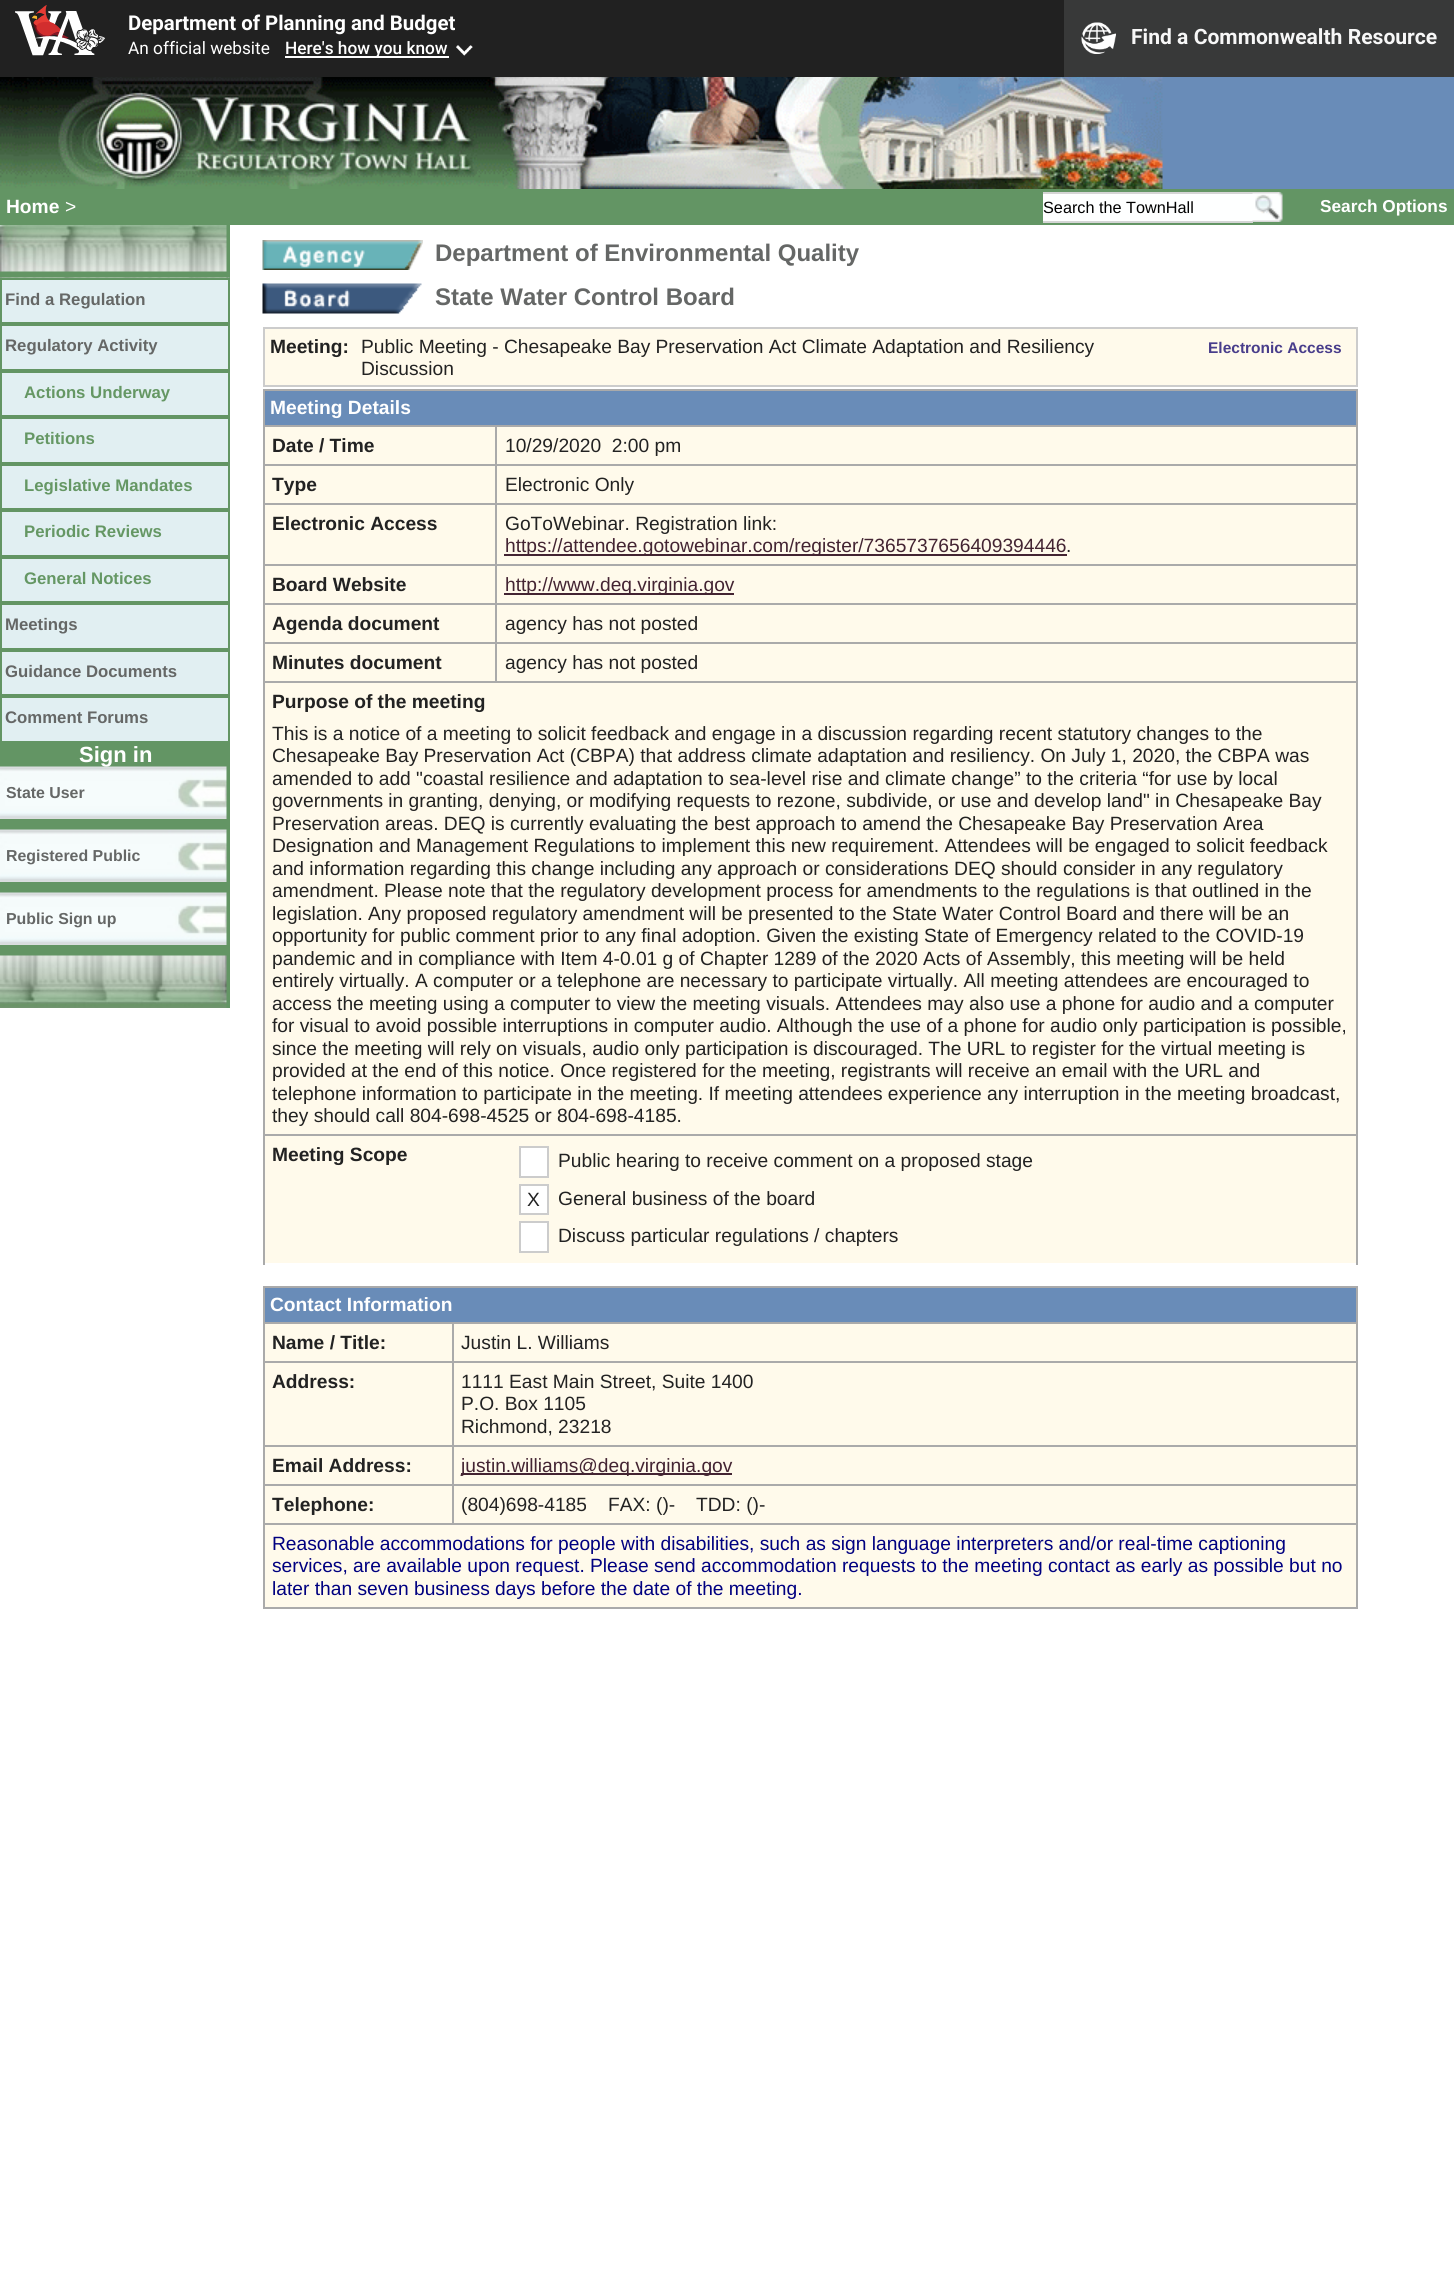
import math
import cairo

surface = cairo.ImageSurface(cairo.FORMAT_RGB24, 1454, 2273)
ctx = cairo.Context(surface)
options = cairo.FontOptions()
options.set_hint_metrics(cairo.HINT_METRICS_OFF)
options.set_hint_style(cairo.HINT_STYLE_NONE)
ctx.set_font_options(options)
ctx.set_miter_limit(4)


def picture(path, x, y, w, h):
    ctx.save()
    ctx.set_source_surface(cairo.ImageSurface.create_from_png(path), x, y)
    ctx.rectangle(x, y, w, h)
    ctx.fill()
    ctx.restore()


ctx.set_source_rgb(1, 1, 1)
ctx.paint()
ctx.set_source_rgb(0.129, 0.129, 0.129)
ctx.rectangle(0, 0, 1064, 77)
ctx.fill()
picture("img1.png", 15, 5, 90, 51)
ctx.select_font_face("Roboto", cairo.FONT_SLANT_NORMAL, cairo.FONT_WEIGHT_BOLD)
ctx.set_font_size(20.4)
ctx.set_source_rgb(1, 1, 1)
ctx.move_to(128, 30)
ctx.show_text("Department of Planning and Budget")
ctx.select_font_face("Roboto")
ctx.set_font_size(17.25)
ctx.move_to(128, 54)
ctx.show_text("An official website")
ctx.rectangle(285, 56, 164, 2)
ctx.fill()
ctx.select_font_face("Roboto Medium")
ctx.move_to(285, 54)
ctx.show_text("Here's how you know")
picture("img2.png", 456, 45, 17, 11)
ctx.set_source_rgb(0.22, 0.224, 0.224)
ctx.rectangle(1064, 0, 390, 77)
ctx.fill()
picture("img3.png", 1081, 22, 35, 32)
ctx.select_font_face("Roboto", cairo.FONT_SLANT_NORMAL, cairo.FONT_WEIGHT_BOLD)
ctx.set_font_size(21.1)
ctx.set_source_rgb(0.965, 0.965, 0.965)
ctx.move_to(1131, 44)
ctx.show_text("Find a Commonwealth Resource")
ctx.set_source_rgb(0.412, 0.549, 0.722)
ctx.rectangle(1162, 77, 292, 112)
ctx.fill()
picture("img4.png", 0, 77, 1163, 112)
ctx.set_source_rgb(0.388, 0.584, 0.392)
ctx.rectangle(0, 189, 1454, 36)
ctx.fill()
ctx.select_font_face("Liberation Sans", cairo.FONT_SLANT_NORMAL, cairo.FONT_WEIGHT_BOLD)
ctx.set_font_size(19.2)
ctx.set_source_rgb(1, 1, 1)
ctx.move_to(6, 213)
ctx.show_text("Home")
ctx.select_font_face("Liberation Sans")
ctx.move_to(65, 213)
ctx.show_text(">")
ctx.set_source_rgb(0.996, 1, 1)
ctx.rectangle(1043, 194, 210, 27)
ctx.fill()
ctx.set_source_rgb(0.835, 0.835, 0.835)
ctx.rectangle(1043, 192, 210, 2)
ctx.fill()
ctx.rectangle(1043, 221, 210, 2)
ctx.fill()
ctx.set_font_size(16.25)
ctx.set_source_rgb(0, 0, 0)
ctx.move_to(1043, 213)
ctx.show_text("Search the TownHall")
picture("img5.png", 1252, 192, 31, 30)
ctx.select_font_face("Liberation Sans", cairo.FONT_SLANT_NORMAL, cairo.FONT_WEIGHT_BOLD)
ctx.set_font_size(17.25)
ctx.set_source_rgb(1, 1, 1)
ctx.move_to(1320, 212)
ctx.show_text("Search Options")
ctx.set_source_rgb(0.388, 0.584, 0.392)
ctx.rectangle(0, 225, 230, 783)
ctx.fill()
picture("img6.png", 0, 225, 227, 47)
picture("img7.png", 0, 277, 230, 1)
ctx.set_source_rgb(0.882, 0.937, 0.949)
ctx.rectangle(2, 280, 226, 42)
ctx.fill()
ctx.set_font_size(16.75)
ctx.set_source_rgb(0.396, 0.404, 0.4)
ctx.move_to(5, 305)
ctx.show_text("Find a Regulation")
ctx.set_source_rgb(0.882, 0.937, 0.949)
ctx.rectangle(2, 326, 226, 43)
ctx.fill()
ctx.set_source_rgb(0.396, 0.404, 0.4)
ctx.move_to(5, 351)
ctx.show_text("Regulatory Activity")
ctx.set_source_rgb(0.882, 0.937, 0.949)
ctx.rectangle(2, 373, 226, 42)
ctx.fill()
ctx.set_source_rgb(0.396, 0.592, 0.392)
ctx.move_to(24, 398)
ctx.show_text("Actions Underway")
ctx.set_source_rgb(0.882, 0.937, 0.949)
ctx.rectangle(2, 419, 226, 43)
ctx.fill()
ctx.set_source_rgb(0.396, 0.592, 0.392)
ctx.move_to(24, 444)
ctx.show_text("Petitions")
ctx.set_source_rgb(0.882, 0.937, 0.949)
ctx.rectangle(2, 466, 226, 42)
ctx.fill()
ctx.set_source_rgb(0.396, 0.592, 0.392)
ctx.move_to(24, 491)
ctx.show_text("Legislative Mandates")
ctx.set_source_rgb(0.882, 0.937, 0.949)
ctx.rectangle(2, 512, 226, 43)
ctx.fill()
ctx.set_source_rgb(0.396, 0.592, 0.392)
ctx.move_to(24, 537)
ctx.show_text("Periodic Reviews")
ctx.set_source_rgb(0.882, 0.937, 0.949)
ctx.rectangle(2, 559, 226, 42)
ctx.fill()
ctx.set_source_rgb(0.396, 0.592, 0.392)
ctx.move_to(24, 584)
ctx.show_text("General Notices")
ctx.set_source_rgb(0.882, 0.937, 0.949)
ctx.rectangle(2, 605, 226, 43)
ctx.fill()
ctx.set_source_rgb(0.396, 0.404, 0.4)
ctx.move_to(5, 630)
ctx.show_text("Meetings")
ctx.set_source_rgb(0.882, 0.937, 0.949)
ctx.rectangle(2, 652, 226, 42)
ctx.fill()
ctx.set_source_rgb(0.396, 0.404, 0.4)
ctx.move_to(5, 677)
ctx.show_text("Guidance Documents")
ctx.set_source_rgb(0.882, 0.937, 0.949)
ctx.rectangle(2, 698, 226, 43)
ctx.fill()
ctx.set_source_rgb(0.396, 0.404, 0.4)
ctx.move_to(5, 723)
ctx.show_text("Comment Forums")
picture("img8.png", 0, 766, 227, 53)
ctx.set_font_size(22)
ctx.set_source_rgb(1, 1, 1)
ctx.move_to(79, 762)
ctx.show_text("Sign in")
ctx.set_font_size(15.9)
ctx.set_source_rgb(0.396, 0.404, 0.4)
ctx.move_to(6, 798)
ctx.show_text("State User")
picture("img8.png", 0, 829, 227, 53)
ctx.move_to(6, 861)
ctx.show_text("Registered Public")
picture("img8.png", 0, 892, 227, 53)
ctx.move_to(6, 924)
ctx.show_text("Public Sign up")
picture("img9.png", 0, 955, 227, 53)
picture("img10.png", 262, 240, 161, 30)
ctx.set_font_size(24)
ctx.move_to(435, 261)
ctx.show_text("Department of Environmental Quality")
picture("img11.png", 262, 283, 160, 31)
ctx.move_to(435, 305)
ctx.show_text("State Water Control Board")
ctx.set_source_rgb(1, 0.98, 0.918)
ctx.rectangle(264, 328, 1093, 58)
ctx.fill_preserve()
ctx.set_source_rgb(0.8, 0.8, 0.8)
ctx.stroke()
ctx.set_font_size(19.2)
ctx.set_source_rgb(0.133, 0.133, 0.133)
ctx.move_to(270, 353)
ctx.show_text("Meeting:")
ctx.select_font_face("Liberation Sans")
ctx.move_to(361, 353)
ctx.show_text("Public Meeting - Chesapeake Bay Preservation Act Climate Adaptation and Resiliency")
ctx.move_to(361, 375)
ctx.show_text("Discussion")
ctx.select_font_face("Liberation Sans", cairo.FONT_SLANT_NORMAL, cairo.FONT_WEIGHT_BOLD)
ctx.set_font_size(15.5)
ctx.set_source_rgb(0.282, 0.239, 0.545)
ctx.move_to(1208, 353)
ctx.show_text("Electronic Access")
ctx.set_source_rgb(1, 0.98, 0.918)
ctx.rectangle(265, 427, 1091, 836)
ctx.fill()
ctx.set_source_rgb(0.412, 0.549, 0.722)
ctx.rectangle(265, 391, 1091, 34)
ctx.fill()
ctx.set_source_rgb(0.667, 0.667, 0.667)
ctx.rectangle(263, 389, 1095, 2)
ctx.fill()
ctx.rectangle(495, 425, 863, 2)
ctx.fill()
ctx.rectangle(495, 464, 863, 2)
ctx.fill()
ctx.rectangle(495, 503, 863, 2)
ctx.fill()
ctx.rectangle(495, 564, 863, 2)
ctx.fill()
ctx.rectangle(495, 603, 863, 2)
ctx.fill()
ctx.rectangle(495, 642, 863, 2)
ctx.fill()
ctx.rectangle(263, 681, 1095, 2)
ctx.fill()
ctx.rectangle(263, 1134, 1095, 2)
ctx.fill()
ctx.rectangle(1356, 1134, 2, 131)
ctx.fill()
ctx.rectangle(1356, 681, 2, 455)
ctx.fill()
ctx.rectangle(1356, 642, 2, 41)
ctx.fill()
ctx.rectangle(1356, 603, 2, 41)
ctx.fill()
ctx.rectangle(1356, 564, 2, 41)
ctx.fill()
ctx.rectangle(1356, 503, 2, 63)
ctx.fill()
ctx.rectangle(1356, 464, 2, 40)
ctx.fill()
ctx.rectangle(1356, 425, 2, 40)
ctx.fill()
ctx.rectangle(1356, 389, 2, 37)
ctx.fill()
ctx.rectangle(495, 642, 2, 41)
ctx.fill()
ctx.rectangle(263, 642, 234, 2)
ctx.fill()
ctx.rectangle(495, 603, 2, 41)
ctx.fill()
ctx.rectangle(263, 603, 234, 2)
ctx.fill()
ctx.rectangle(495, 564, 2, 41)
ctx.fill()
ctx.rectangle(263, 564, 234, 2)
ctx.fill()
ctx.rectangle(495, 503, 2, 63)
ctx.fill()
ctx.rectangle(263, 503, 234, 2)
ctx.fill()
ctx.rectangle(495, 464, 2, 40)
ctx.fill()
ctx.rectangle(263, 464, 234, 2)
ctx.fill()
ctx.rectangle(495, 425, 2, 40)
ctx.fill()
ctx.rectangle(263, 425, 234, 2)
ctx.fill()
ctx.rectangle(263, 1134, 2, 131)
ctx.fill()
ctx.rectangle(263, 681, 2, 455)
ctx.fill()
ctx.rectangle(263, 642, 2, 41)
ctx.fill()
ctx.rectangle(263, 603, 2, 41)
ctx.fill()
ctx.rectangle(263, 564, 2, 41)
ctx.fill()
ctx.rectangle(263, 503, 2, 63)
ctx.fill()
ctx.rectangle(263, 464, 2, 40)
ctx.fill()
ctx.rectangle(263, 425, 2, 40)
ctx.fill()
ctx.rectangle(263, 389, 2, 37)
ctx.fill()
ctx.set_font_size(19.2)
ctx.set_source_rgb(1, 1, 1)
ctx.move_to(270, 414)
ctx.show_text("Meeting Details")
ctx.set_source_rgb(0.133, 0.133, 0.133)
ctx.move_to(272, 452)
ctx.show_text("Date / Time")
ctx.select_font_face("Liberation Sans")
ctx.move_to(505, 452)
ctx.show_text("10/29/2020  2:00 pm")
ctx.select_font_face("Liberation Sans", cairo.FONT_SLANT_NORMAL, cairo.FONT_WEIGHT_BOLD)
ctx.move_to(272, 491)
ctx.show_text("Type")
ctx.select_font_face("Liberation Sans")
ctx.move_to(505, 491)
ctx.show_text("Electronic Only")
ctx.select_font_face("Liberation Sans", cairo.FONT_SLANT_NORMAL, cairo.FONT_WEIGHT_BOLD)
ctx.move_to(272, 530)
ctx.show_text("Electronic Access")
ctx.select_font_face("Liberation Sans")
ctx.move_to(505, 530)
ctx.show_text("GoToWebinar. Registration link:")
ctx.set_source_rgb(0.263, 0.141, 0.196)
ctx.rectangle(504, 554, 563, 2)
ctx.fill()
ctx.move_to(505, 552)
ctx.show_text("https://attendee.gotowebinar.com/register/7365737656409394446")
ctx.set_source_rgb(0.133, 0.133, 0.133)
ctx.move_to(1066, 552)
ctx.show_text(".")
ctx.select_font_face("Liberation Sans", cairo.FONT_SLANT_NORMAL, cairo.FONT_WEIGHT_BOLD)
ctx.move_to(272, 591)
ctx.show_text("Board Website")
ctx.set_source_rgb(0.263, 0.141, 0.196)
ctx.rectangle(504, 593, 230, 2)
ctx.fill()
ctx.select_font_face("Liberation Sans")
ctx.move_to(505, 591)
ctx.show_text("http://www.deq.virginia.gov")
ctx.select_font_face("Liberation Sans", cairo.FONT_SLANT_NORMAL, cairo.FONT_WEIGHT_BOLD)
ctx.set_source_rgb(0.133, 0.133, 0.133)
ctx.move_to(272, 630)
ctx.show_text("Agenda document")
ctx.select_font_face("Liberation Sans")
ctx.move_to(505, 630)
ctx.show_text("agency has not posted")
ctx.select_font_face("Liberation Sans", cairo.FONT_SLANT_NORMAL, cairo.FONT_WEIGHT_BOLD)
ctx.move_to(272, 669)
ctx.show_text("Minutes document")
ctx.select_font_face("Liberation Sans")
ctx.move_to(505, 669)
ctx.show_text("agency has not posted")
ctx.select_font_face("Liberation Sans", cairo.FONT_SLANT_NORMAL, cairo.FONT_WEIGHT_BOLD)
ctx.move_to(272, 708)
ctx.show_text("Purpose of the meeting")
ctx.select_font_face("Liberation Sans")
ctx.move_to(272, 740)
ctx.show_text("This is a notice of a meeting to solicit feedback and engage in a discussion regarding recent statutory changes to the")
ctx.move_to(272, 762)
ctx.show_text("Chesapeake Bay Preservation Act (CBPA) that address climate adaptation and resiliency. On July 1, 2020, the CBPA was")
ctx.move_to(272, 785)
ctx.show_text("amended to add \"coastal resilience and adaptation to sea-level rise and climate change” to the criteria “for use by local")
ctx.move_to(272, 807)
ctx.show_text("governments in granting, denying, or modifying requests to rezone, subdivide, or use and develop land\" in Chesapeake Bay")
ctx.move_to(272, 830)
ctx.show_text("Preservation areas. DEQ is currently evaluating the best approach to amend the Chesapeake Bay Preservation Area")
ctx.move_to(272, 852)
ctx.show_text("Designation and Management Regulations to implement this new requirement. Attendees will be engaged to solicit feedback")
ctx.move_to(272, 875)
ctx.show_text("and information regarding this change including any approach or considerations DEQ should consider in any regulatory")
ctx.move_to(272, 897)
ctx.show_text("amendment. Please note that the regulatory development process for amendments to the regulations is that outlined in the")
ctx.move_to(272, 920)
ctx.show_text("legislation. Any proposed regulatory amendment will be presented to the State Water Control Board and there will be an")
ctx.move_to(272, 942)
ctx.show_text("opportunity for public comment prior to any final adoption. Given the existing State of Emergency related to the COVID-19")
ctx.move_to(272, 965)
ctx.show_text("pandemic and in compliance with Item 4-0.01 g of Chapter 1289 of the 2020 Acts of Assembly, this meeting will be held")
ctx.move_to(272, 987)
ctx.show_text("entirely virtually. A computer or a telephone are necessary to participate virtually. All meeting attendees are encouraged to")
ctx.move_to(272, 1010)
ctx.show_text("access the meeting using a computer to view the meeting visuals. Attendees may also use a phone for audio and a computer")
ctx.move_to(272, 1032)
ctx.show_text("for visual to avoid possible interruptions in computer audio. Although the use of a phone for audio only participation is possible,")
ctx.move_to(272, 1055)
ctx.show_text("since the meeting will rely on visuals, audio only participation is discouraged. The URL to register for the virtual meeting is")
ctx.move_to(272, 1077)
ctx.show_text("provided at the end of this notice. Once registered for the meeting, registrants will receive an email with the URL and")
ctx.move_to(272, 1100)
ctx.show_text("telephone information to participate in the meeting. If meeting attendees experience any interruption in the meeting broadcast,")
ctx.move_to(272, 1122)
ctx.show_text("they should call 804-698-4525 or 804-698-4185.")
ctx.select_font_face("Liberation Sans", cairo.FONT_SLANT_NORMAL, cairo.FONT_WEIGHT_BOLD)
ctx.move_to(272, 1161)
ctx.show_text("Meeting Scope")
ctx.set_source_rgb(1, 1, 1)
ctx.rectangle(520, 1147, 28, 30)
ctx.fill_preserve()
ctx.set_source_rgb(0.8, 0.8, 0.8)
ctx.stroke()
ctx.select_font_face("Liberation Sans")
ctx.set_source_rgb(0.133, 0.133, 0.133)
ctx.move_to(558, 1167)
ctx.show_text("Public hearing to receive comment on a proposed stage")
ctx.set_source_rgb(1, 1, 1)
ctx.rectangle(520, 1185, 28, 29)
ctx.fill_preserve()
ctx.set_source_rgb(0.8, 0.8, 0.8)
ctx.stroke()
ctx.set_source_rgb(0.133, 0.133, 0.133)
ctx.move_to(527, 1206)
ctx.show_text("X")
ctx.move_to(558, 1205)
ctx.show_text("General business of the board")
ctx.set_source_rgb(1, 1, 1)
ctx.rectangle(520, 1222, 28, 30)
ctx.fill_preserve()
ctx.set_source_rgb(0.8, 0.8, 0.8)
ctx.stroke()
ctx.set_source_rgb(0.133, 0.133, 0.133)
ctx.move_to(558, 1242)
ctx.show_text("Discuss particular regulations / chapters")
ctx.set_source_rgb(1, 0.98, 0.918)
ctx.rectangle(265, 1324, 1091, 283)
ctx.fill()
ctx.set_source_rgb(0.412, 0.549, 0.722)
ctx.rectangle(265, 1288, 1091, 34)
ctx.fill()
ctx.set_source_rgb(0.667, 0.667, 0.667)
ctx.rectangle(263, 1286, 1095, 2)
ctx.fill()
ctx.rectangle(452, 1322, 906, 2)
ctx.fill()
ctx.rectangle(452, 1361, 906, 2)
ctx.fill()
ctx.rectangle(452, 1445, 906, 2)
ctx.fill()
ctx.rectangle(452, 1484, 906, 2)
ctx.fill()
ctx.rectangle(263, 1523, 1095, 2)
ctx.fill()
ctx.rectangle(1356, 1523, 2, 85)
ctx.fill()
ctx.rectangle(1356, 1484, 2, 40)
ctx.fill()
ctx.rectangle(1356, 1445, 2, 40)
ctx.fill()
ctx.rectangle(1356, 1361, 2, 85)
ctx.fill()
ctx.rectangle(1356, 1322, 2, 40)
ctx.fill()
ctx.rectangle(1356, 1286, 2, 37)
ctx.fill()
ctx.rectangle(452, 1484, 2, 40)
ctx.fill()
ctx.rectangle(263, 1484, 190, 2)
ctx.fill()
ctx.rectangle(452, 1445, 2, 40)
ctx.fill()
ctx.rectangle(263, 1445, 190, 2)
ctx.fill()
ctx.rectangle(452, 1361, 2, 85)
ctx.fill()
ctx.rectangle(263, 1361, 190, 2)
ctx.fill()
ctx.rectangle(452, 1322, 2, 40)
ctx.fill()
ctx.rectangle(263, 1322, 190, 2)
ctx.fill()
ctx.rectangle(263, 1607, 1095, 2)
ctx.fill()
ctx.rectangle(263, 1523, 2, 85)
ctx.fill()
ctx.rectangle(263, 1484, 2, 40)
ctx.fill()
ctx.rectangle(263, 1445, 2, 40)
ctx.fill()
ctx.rectangle(263, 1361, 2, 85)
ctx.fill()
ctx.rectangle(263, 1322, 2, 40)
ctx.fill()
ctx.rectangle(263, 1286, 2, 37)
ctx.fill()
ctx.select_font_face("Liberation Sans", cairo.FONT_SLANT_NORMAL, cairo.FONT_WEIGHT_BOLD)
ctx.set_source_rgb(1, 1, 1)
ctx.move_to(270, 1311)
ctx.show_text("Contact Information")
ctx.set_source_rgb(0.133, 0.133, 0.133)
ctx.move_to(272, 1349)
ctx.show_text("Name / Title:")
ctx.select_font_face("Liberation Sans")
ctx.move_to(461, 1349)
ctx.show_text("Justin L. Williams")
ctx.select_font_face("Liberation Sans", cairo.FONT_SLANT_NORMAL, cairo.FONT_WEIGHT_BOLD)
ctx.move_to(272, 1388)
ctx.show_text("Address:")
ctx.select_font_face("Liberation Sans")
ctx.move_to(461, 1388)
ctx.show_text("1111 East Main Street, Suite 1400")
ctx.move_to(461, 1410)
ctx.show_text("P.O. Box 1105")
ctx.move_to(461, 1433)
ctx.show_text("Richmond, 23218")
ctx.select_font_face("Liberation Sans", cairo.FONT_SLANT_NORMAL, cairo.FONT_WEIGHT_BOLD)
ctx.move_to(272, 1472)
ctx.show_text("Email Address:")
ctx.set_source_rgb(0.263, 0.141, 0.196)
ctx.rectangle(461, 1473, 271, 2)
ctx.fill()
ctx.select_font_face("Liberation Sans")
ctx.move_to(461, 1472)
ctx.show_text("justin.williams@deq.virginia.gov")
ctx.select_font_face("Liberation Sans", cairo.FONT_SLANT_NORMAL, cairo.FONT_WEIGHT_BOLD)
ctx.set_source_rgb(0.133, 0.133, 0.133)
ctx.move_to(272, 1511)
ctx.show_text("Telephone:")
ctx.select_font_face("Liberation Sans")
ctx.move_to(461, 1511)
ctx.show_text("(804)698-4185")
ctx.move_to(608, 1511)
ctx.show_text("FAX: ()-")
ctx.move_to(696, 1511)
ctx.show_text("TDD: ()-")
ctx.set_source_rgb(0, 0, 0.502)
ctx.move_to(272, 1550)
ctx.show_text("Reasonable accommodations for people with disabilities, such as sign language interpreters and/or real-time captioning")
ctx.move_to(272, 1572)
ctx.show_text("services, are available upon request. Please send accommodation requests to the meeting contact as early as possible but no")
ctx.move_to(272, 1595)
ctx.show_text("later than seven business days before the date of the meeting.")
surface.write_to_png("page.png")
